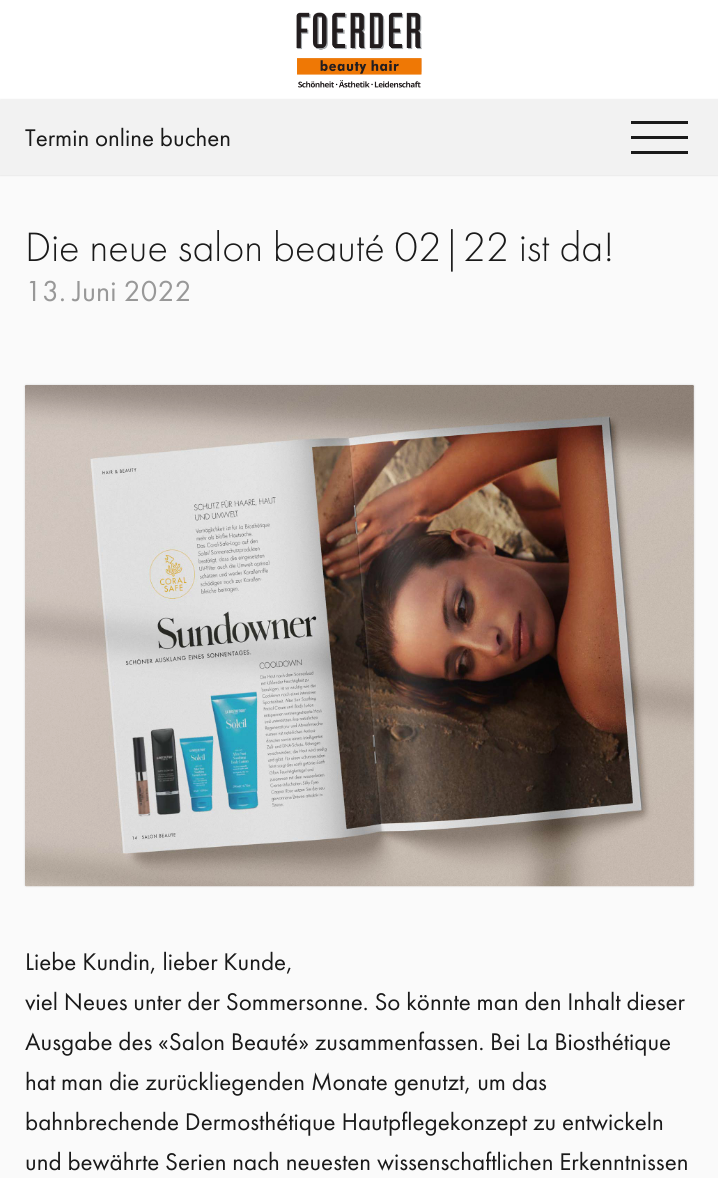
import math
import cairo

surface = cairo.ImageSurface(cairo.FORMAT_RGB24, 718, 1178)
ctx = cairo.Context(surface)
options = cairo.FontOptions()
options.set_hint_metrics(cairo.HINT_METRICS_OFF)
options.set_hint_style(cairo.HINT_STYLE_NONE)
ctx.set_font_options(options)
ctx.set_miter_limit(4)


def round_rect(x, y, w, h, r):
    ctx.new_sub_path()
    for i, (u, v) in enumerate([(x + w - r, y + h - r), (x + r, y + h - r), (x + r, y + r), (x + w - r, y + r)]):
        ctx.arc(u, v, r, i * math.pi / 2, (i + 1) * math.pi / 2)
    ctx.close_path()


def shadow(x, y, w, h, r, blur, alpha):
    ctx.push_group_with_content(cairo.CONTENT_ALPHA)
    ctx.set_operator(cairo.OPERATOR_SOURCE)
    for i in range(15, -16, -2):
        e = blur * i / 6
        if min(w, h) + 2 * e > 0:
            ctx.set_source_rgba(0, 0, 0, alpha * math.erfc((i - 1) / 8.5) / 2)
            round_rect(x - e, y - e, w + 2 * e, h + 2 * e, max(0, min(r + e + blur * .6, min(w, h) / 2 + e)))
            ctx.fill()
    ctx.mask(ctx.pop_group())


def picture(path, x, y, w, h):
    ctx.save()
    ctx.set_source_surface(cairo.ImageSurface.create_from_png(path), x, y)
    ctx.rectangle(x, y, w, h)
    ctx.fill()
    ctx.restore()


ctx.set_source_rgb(0.98, 0.98, 0.98)
ctx.paint()
ctx.set_source_rgb(1, 1, 1)
ctx.rectangle(0, 0, 718, 100)
ctx.fill()
picture("img1.png", 296, 12, 126, 76)
ctx.set_source_rgb(0.949, 0.949, 0.949)
ctx.rectangle(0, 100, 718, 75)
ctx.fill()
ctx.save()
ctx.set_fill_rule(cairo.FILL_RULE_EVEN_ODD)
ctx.new_path()
ctx.move_to(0, 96)
ctx.line_to(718, 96)
ctx.line_to(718, 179)
ctx.line_to(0, 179)
ctx.close_path()
ctx.move_to(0, 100)
ctx.line_to(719, 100)
ctx.line_to(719, 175)
ctx.line_to(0, 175)
ctx.close_path()
ctx.clip()
ctx.set_source_rgb(0, 0, 0)
shadow(0, 100, 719, 75, 0, 1, 0.15)
ctx.restore()
ctx.select_font_face("Futura PT")
ctx.set_font_size(25)
ctx.set_source_rgb(0.102, 0.102, 0.102)
ctx.move_to(25, 146)
ctx.show_text("Termin online buchen")
ctx.rectangle(631, 136, 57, 3)
ctx.fill()
ctx.rectangle(631, 121, 57, 3)
ctx.fill()
ctx.rectangle(631, 151, 57, 3)
ctx.fill()
ctx.select_font_face("Futura PT Light")
ctx.set_font_size(42.5)
ctx.move_to(25, 261)
ctx.show_text("Die neue salon beauté 02|22 ist da!")
ctx.select_font_face("Futura PT")
ctx.set_font_size(30)
ctx.set_source_rgb(0.596, 0.596, 0.596)
ctx.move_to(25, 301)
ctx.show_text("13. Juni 2022")
ctx.set_source_rgb(0, 0, 0)
shadow(25, 385, 669, 501, 1, 1, 0.15)
picture("img2.png", 24, 385, 670, 502)
ctx.set_source_rgba(0, 0, 0, 0.08)
ctx.rectangle(25, 385, 669, 501)
ctx.fill()
ctx.set_font_size(25)
ctx.set_source_rgb(0.102, 0.102, 0.102)
ctx.move_to(25, 970)
ctx.show_text("Liebe Kundin, lieber Kunde,")
ctx.move_to(25, 1010)
ctx.show_text("viel Neues unter der Sommersonne. So könnte man den Inhalt dieser")
ctx.move_to(25, 1050)
ctx.show_text("Ausgabe des «Salon Beauté» zusammenfassen. Bei La Biosthétique")
ctx.move_to(25, 1090)
ctx.show_text("hat man die zurückliegenden Monate genutzt, um das")
ctx.move_to(25, 1130)
ctx.show_text("bahnbrechende Dermosthétique Hautpflegekonzept zu entwickeln")
ctx.move_to(25, 1170)
ctx.show_text("und bewährte Serien nach neuesten wissenschaftlichen Erkenntnissen")
surface.write_to_png("page.png")
